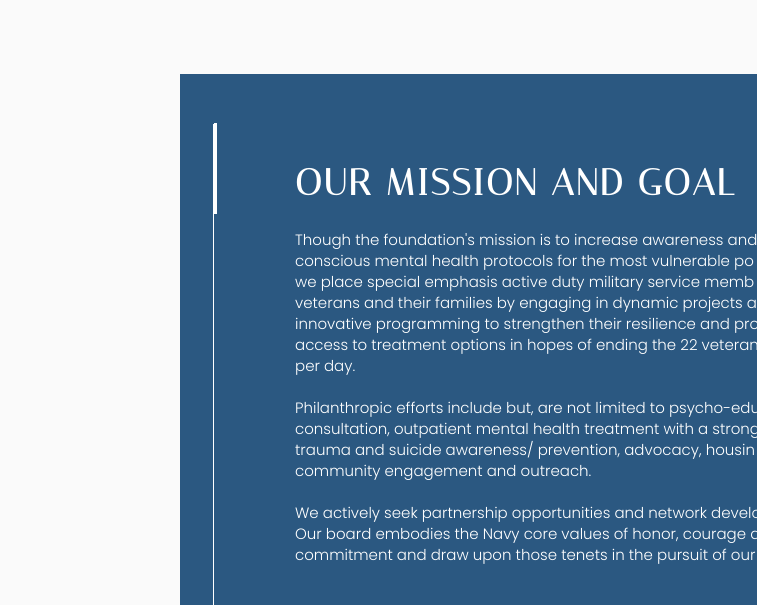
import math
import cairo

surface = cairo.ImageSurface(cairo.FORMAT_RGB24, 757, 605)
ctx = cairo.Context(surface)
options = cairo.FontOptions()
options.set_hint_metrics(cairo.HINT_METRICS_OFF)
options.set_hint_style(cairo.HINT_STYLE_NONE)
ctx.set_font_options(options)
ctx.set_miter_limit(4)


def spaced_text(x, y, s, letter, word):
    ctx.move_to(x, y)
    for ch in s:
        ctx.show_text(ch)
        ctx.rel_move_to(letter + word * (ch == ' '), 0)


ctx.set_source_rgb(0.98, 0.98, 0.98)
ctx.paint()
ctx.set_source_rgb(0.169, 0.345, 0.506)
ctx.rectangle(180, 74, 577, 531)
ctx.fill()
ctx.set_source_rgb(1, 1, 1)
ctx.rectangle(213, 124, 1, 481)
ctx.fill()
ctx.rectangle(214, 123, 3, 91)
ctx.fill()
ctx.select_font_face("Italiana", cairo.FONT_SLANT_NORMAL, cairo.FONT_WEIGHT_BOLD)
ctx.set_font_size(37)
spaced_text(295, 195, "OUR MISSION AND GOAL", 1.85, 0)
ctx.select_font_face("Poppins Light")
ctx.set_font_size(15)
ctx.move_to(295, 245)
ctx.show_text("Though the foundation's mission is to increase awareness and")
ctx.move_to(295, 266)
ctx.show_text("conscious mental health protocols for the most vulnerable po")
ctx.move_to(295, 287)
ctx.show_text("we place special emphasis active duty military service memb")
ctx.move_to(295, 308)
ctx.show_text("veterans and their families by engaging in dynamic projects a")
ctx.move_to(295, 329)
ctx.show_text("innovative programming to strengthen their resilience and pro")
ctx.move_to(295, 350)
ctx.show_text("access to treatment options in hopes of ending the 22 veteran")
ctx.move_to(295, 371)
ctx.show_text("per day.")
ctx.move_to(295, 413)
ctx.show_text("Philanthropic efforts include but, are not limited to psycho-edu")
ctx.move_to(295, 434)
ctx.show_text("consultation, outpatient mental health treatment with a strong")
ctx.move_to(295, 455)
ctx.show_text("trauma and suicide awareness/ prevention, advocacy, housin")
ctx.move_to(295, 476)
ctx.show_text("community engagement and outreach.")
ctx.move_to(295, 518)
ctx.show_text("We actively seek partnership opportunities and network develo")
ctx.move_to(295, 539)
ctx.show_text("Our board embodies the Navy core values of honor, courage a")
ctx.move_to(295, 560)
ctx.show_text("commitment and draw upon those tenets in the pursuit of our")
surface.write_to_png("page.png")
